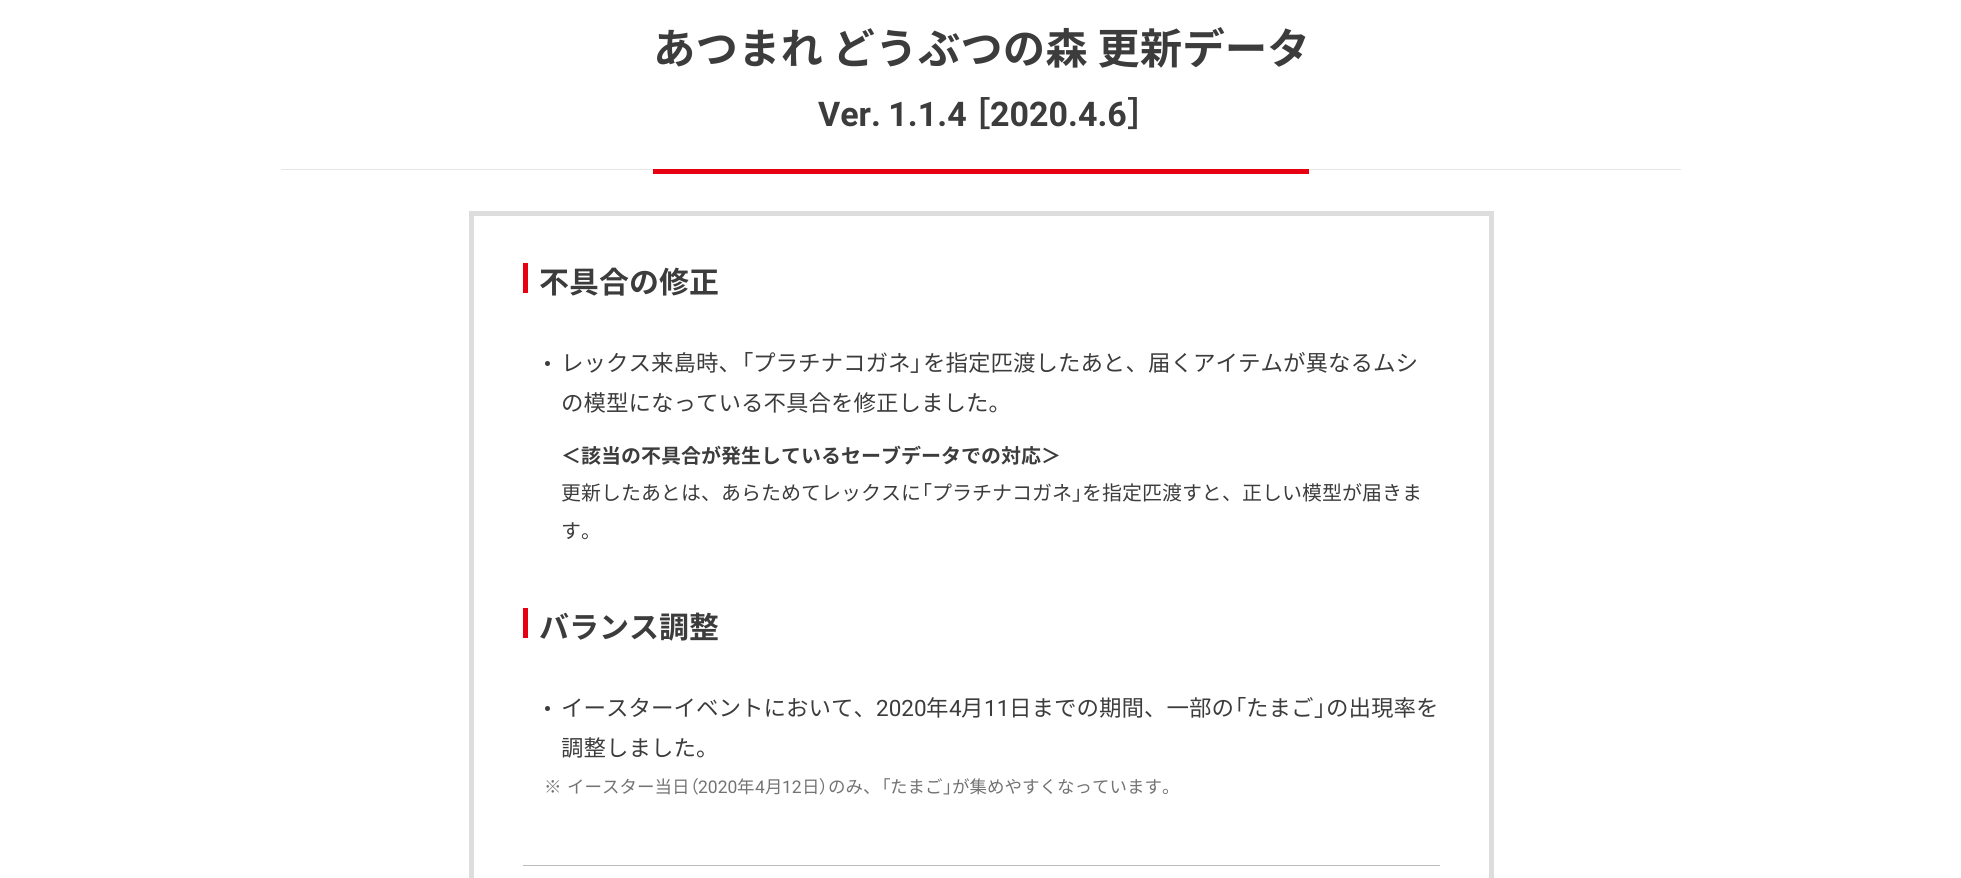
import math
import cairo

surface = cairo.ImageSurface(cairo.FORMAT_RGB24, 1961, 878)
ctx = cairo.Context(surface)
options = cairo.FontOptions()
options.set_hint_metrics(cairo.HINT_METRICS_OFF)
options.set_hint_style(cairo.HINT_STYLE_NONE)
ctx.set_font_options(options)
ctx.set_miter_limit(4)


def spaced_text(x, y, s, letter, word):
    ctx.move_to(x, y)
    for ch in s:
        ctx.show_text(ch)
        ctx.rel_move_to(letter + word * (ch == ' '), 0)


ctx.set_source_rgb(1, 1, 1)
ctx.paint()
ctx.set_source_rgb(0.902, 0.902, 0.902)
ctx.rectangle(281, 169, 1400, 1)
ctx.fill()
ctx.set_source_rgb(0.902, 0, 0.071)
ctx.rectangle(653, 169, 656, 5)
ctx.fill()
ctx.select_font_face("Noto Sans JP", cairo.FONT_SLANT_NORMAL, cairo.FONT_WEIGHT_BOLD)
ctx.set_font_size(42.5)
ctx.set_source_rgb(0.235, 0.235, 0.235)
ctx.move_to(653, 64)
ctx.show_text("あつまれ どうぶつの森 更新データ")
ctx.select_font_face("Roboto", cairo.FONT_SLANT_NORMAL, cairo.FONT_WEIGHT_BOLD)
ctx.set_font_size(34)
spaced_text(818, 126, "Ver. 1.1.4", 0, -1)
ctx.select_font_face("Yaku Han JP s", cairo.FONT_SLANT_NORMAL, cairo.FONT_WEIGHT_BOLD)
ctx.move_to(974, 126)
ctx.show_text("［")
ctx.select_font_face("Roboto", cairo.FONT_SLANT_NORMAL, cairo.FONT_WEIGHT_BOLD)
ctx.move_to(990, 126)
ctx.show_text("2020.4.6")
ctx.select_font_face("Yaku Han JP s", cairo.FONT_SLANT_NORMAL, cairo.FONT_WEIGHT_BOLD)
ctx.move_to(1127, 126)
ctx.show_text("］")
ctx.rectangle(471.5, 213.5, 1020, 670)
ctx.set_source_rgb(0.867, 0.867, 0.867)
ctx.set_line_width(5)
ctx.stroke()
ctx.set_source_rgb(0.902, 0, 0.071)
ctx.rectangle(523, 263, 5, 30)
ctx.fill()
ctx.select_font_face("Noto Sans JP", cairo.FONT_SLANT_NORMAL, cairo.FONT_WEIGHT_BOLD)
ctx.set_font_size(30)
ctx.set_source_rgb(0.235, 0.235, 0.235)
ctx.move_to(539, 293)
ctx.show_text("不具合の修正")
ctx.new_path()
ctx.arc(547.5, 363.5, 2.5, 0, 2 * math.pi)
ctx.fill()
ctx.select_font_face("Noto Sans JP")
ctx.set_font_size(22.5)
ctx.move_to(561, 371)
ctx.show_text("レックス来島時、")
ctx.select_font_face("Yaku Han JP s")
ctx.move_to(741, 371)
ctx.show_text("「")
ctx.select_font_face("Noto Sans JP")
ctx.move_to(753, 371)
ctx.show_text("プラチナコガネ")
ctx.select_font_face("Yaku Han JP s")
ctx.move_to(910, 371)
ctx.show_text("」")
ctx.select_font_face("Noto Sans JP")
ctx.move_to(923, 371)
ctx.show_text("を指定匹渡したあと、届くアイテムが異なるムシ")
ctx.move_to(561, 411)
ctx.show_text("の模型になっている不具合を修正しました。")
ctx.select_font_face("Noto Sans JP", cairo.FONT_SLANT_NORMAL, cairo.FONT_WEIGHT_BOLD)
ctx.set_font_size(20)
ctx.move_to(561, 463)
ctx.show_text("＜該当の不具合が発生しているセーブデータでの対応＞")
ctx.select_font_face("Noto Sans JP")
ctx.move_to(561, 500)
ctx.show_text("更新したあとは、あらためてレックスに")
ctx.select_font_face("Yaku Han JP s")
ctx.move_to(921, 500)
ctx.show_text("「")
ctx.select_font_face("Noto Sans JP")
ctx.move_to(932, 500)
ctx.show_text("プラチナコガネ")
ctx.select_font_face("Yaku Han JP s")
ctx.move_to(1072, 500)
ctx.show_text("」")
ctx.select_font_face("Noto Sans JP")
ctx.move_to(1082, 500)
ctx.show_text("を指定匹渡すと、正しい模型が届きま")
ctx.move_to(561, 538)
ctx.show_text("す。")
ctx.set_source_rgb(0.902, 0, 0.071)
ctx.rectangle(523, 608, 5, 30)
ctx.fill()
ctx.select_font_face("Noto Sans JP", cairo.FONT_SLANT_NORMAL, cairo.FONT_WEIGHT_BOLD)
ctx.set_font_size(30)
ctx.set_source_rgb(0.235, 0.235, 0.235)
ctx.move_to(539, 638)
ctx.show_text("バランス調整")
ctx.new_path()
ctx.arc(547.5, 708.5, 2.5, 0, 2 * math.pi)
ctx.fill()
ctx.select_font_face("Noto Sans JP")
ctx.set_font_size(22.5)
ctx.move_to(561, 716)
ctx.show_text("イースターイベントにおいて、")
ctx.select_font_face("Roboto")
ctx.move_to(876, 716)
ctx.show_text("2020")
ctx.select_font_face("Noto Sans JP")
ctx.move_to(926, 716)
ctx.show_text("年")
ctx.select_font_face("Roboto")
ctx.move_to(949, 716)
ctx.show_text("4")
ctx.select_font_face("Noto Sans JP")
ctx.move_to(961, 716)
ctx.show_text("月")
ctx.select_font_face("Roboto")
ctx.move_to(984, 716)
ctx.show_text("11")
ctx.select_font_face("Noto Sans JP")
ctx.move_to(1009, 716)
ctx.show_text("日までの期間、一部の")
ctx.select_font_face("Yaku Han JP s")
ctx.move_to(1234, 716)
ctx.show_text("「")
ctx.select_font_face("Noto Sans JP")
ctx.move_to(1246, 716)
ctx.show_text("たまご")
ctx.select_font_face("Yaku Han JP s")
ctx.move_to(1314, 716)
ctx.show_text("」")
ctx.select_font_face("Noto Sans JP")
ctx.move_to(1326, 716)
ctx.show_text("の出現率を")
ctx.move_to(561, 756)
ctx.show_text("調整しました。")
ctx.set_font_size(17.5)
ctx.set_source_rgb(0.451, 0.451, 0.451)
ctx.move_to(544, 793)
ctx.show_text("※")
ctx.move_to(567, 793)
ctx.show_text("イースター当日")
ctx.select_font_face("Yaku Han JP s")
ctx.move_to(690, 793)
ctx.show_text("（")
ctx.select_font_face("Roboto")
ctx.move_to(698, 793)
ctx.show_text("2020")
ctx.select_font_face("Noto Sans JP")
ctx.move_to(737, 793)
ctx.show_text("年")
ctx.select_font_face("Roboto")
ctx.move_to(755, 793)
ctx.show_text("4")
ctx.select_font_face("Noto Sans JP")
ctx.move_to(765, 793)
ctx.show_text("月")
ctx.select_font_face("Roboto")
ctx.move_to(782, 793)
ctx.show_text("12")
ctx.select_font_face("Noto Sans JP")
ctx.move_to(802, 793)
ctx.show_text("日")
ctx.select_font_face("Yaku Han JP s")
ctx.move_to(819, 793)
ctx.show_text("）")
ctx.select_font_face("Noto Sans JP")
ctx.move_to(828, 793)
ctx.show_text("のみ、")
ctx.select_font_face("Yaku Han JP s")
ctx.move_to(881, 793)
ctx.show_text("「")
ctx.select_font_face("Noto Sans JP")
ctx.move_to(890, 793)
ctx.show_text("たまご")
ctx.select_font_face("Yaku Han JP s")
ctx.move_to(943, 793)
ctx.show_text("」")
ctx.select_font_face("Noto Sans JP")
ctx.move_to(952, 793)
ctx.show_text("が集めやすくなっています。")
ctx.set_source_rgb(0.733, 0.733, 0.733)
ctx.rectangle(523, 865, 917, 1)
ctx.fill()
surface.write_to_png("page.png")
